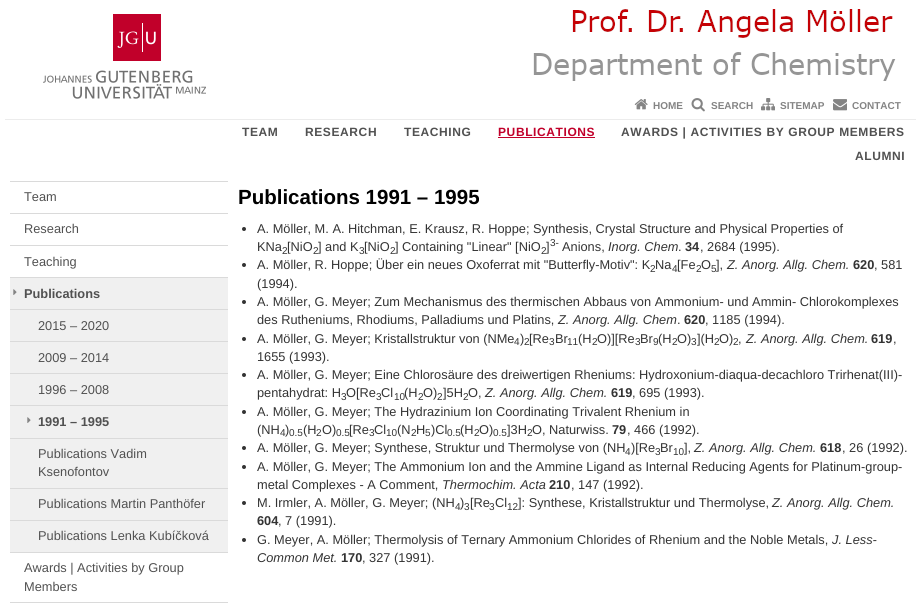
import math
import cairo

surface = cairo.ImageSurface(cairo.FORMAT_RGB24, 921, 610)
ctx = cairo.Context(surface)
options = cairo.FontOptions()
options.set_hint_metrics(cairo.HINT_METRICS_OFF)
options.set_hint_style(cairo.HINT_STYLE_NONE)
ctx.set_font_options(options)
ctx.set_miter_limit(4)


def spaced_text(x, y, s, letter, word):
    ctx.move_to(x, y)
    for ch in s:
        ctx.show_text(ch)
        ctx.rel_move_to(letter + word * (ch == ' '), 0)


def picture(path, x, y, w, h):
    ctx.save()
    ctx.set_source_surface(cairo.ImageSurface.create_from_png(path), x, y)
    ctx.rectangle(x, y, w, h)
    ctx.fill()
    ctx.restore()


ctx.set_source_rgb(1, 1, 1)
ctx.paint()
picture("img1.png", 43, 14, 163, 85)
picture("img2.png", 533, 9, 363, 72)
picture("img3.png", 634, 99, 14, 11)
ctx.select_font_face("Liberation Sans", cairo.FONT_SLANT_NORMAL, cairo.FONT_WEIGHT_BOLD)
ctx.set_font_size(10)
ctx.set_source_rgb(0.518, 0.518, 0.518)
ctx.move_to(653, 109)
ctx.show_text("HOME")
picture("img4.png", 691, 98, 14, 14)
ctx.move_to(711, 109)
ctx.show_text("SEARCH")
picture("img5.png", 761, 98, 14, 13)
ctx.move_to(780, 109)
ctx.show_text("SITEMAP")
picture("img6.png", 833, 99, 14, 12)
ctx.move_to(852, 109)
ctx.show_text("CONTACT")
ctx.set_source_rgb(0.922, 0.922, 0.922)
ctx.rectangle(5, 119, 911, 1)
ctx.fill()
ctx.set_font_size(12)
ctx.set_source_rgb(0.318, 0.318, 0.318)
spaced_text(242, 136, "TEAM", 0.6, 0)
spaced_text(305, 136, "RESEARCH", 0.6, 0)
spaced_text(404, 136, "TEACHING", 0.6, 0)
ctx.set_source_rgb(0.757, 0, 0.165)
spaced_text(498, 136, "PUBLICATIONS", 0.6, 0)
ctx.rectangle(498, 137, 97, 1)
ctx.fill()
ctx.set_source_rgb(0.318, 0.318, 0.318)
spaced_text(621, 136, "AWARDS | ACTIVITIES BY GROUP MEMBERS", 0.6, 0)
spaced_text(855, 160, "ALUMNI", 0.6, 0)
ctx.set_source_rgb(0.855, 0.855, 0.855)
ctx.rectangle(10, 181, 218, 1)
ctx.fill()
ctx.select_font_face("Liberation Sans")
ctx.set_font_size(12.8)
ctx.set_source_rgb(0.318, 0.318, 0.318)
ctx.move_to(24, 201)
ctx.show_text("Team")
ctx.set_source_rgb(0.855, 0.855, 0.855)
ctx.rectangle(10, 213, 218, 1)
ctx.fill()
ctx.set_source_rgb(0.318, 0.318, 0.318)
ctx.move_to(24, 233)
ctx.show_text("Research")
ctx.set_source_rgb(0.855, 0.855, 0.855)
ctx.rectangle(10, 245, 218, 1)
ctx.fill()
ctx.set_source_rgb(0.318, 0.318, 0.318)
ctx.move_to(24, 266)
ctx.show_text("Teaching")
ctx.set_source_rgb(0.941, 0.941, 0.941)
ctx.rectangle(10, 278, 218, 274)
ctx.fill()
ctx.set_source_rgb(0.855, 0.855, 0.855)
ctx.rectangle(10, 277, 218, 1)
ctx.fill()
picture("img7.png", 13, 289, 4, 6)
ctx.select_font_face("Liberation Sans", cairo.FONT_SLANT_NORMAL, cairo.FONT_WEIGHT_BOLD)
ctx.set_source_rgb(0.318, 0.318, 0.318)
ctx.move_to(24, 298)
ctx.show_text("Publications")
ctx.set_source_rgb(0.855, 0.855, 0.855)
ctx.rectangle(10, 309, 218, 1)
ctx.fill()
ctx.select_font_face("Liberation Sans")
ctx.set_source_rgb(0.318, 0.318, 0.318)
ctx.move_to(38, 330)
ctx.show_text("2015 – 2020")
ctx.set_source_rgb(0.855, 0.855, 0.855)
ctx.rectangle(10, 341, 218, 1)
ctx.fill()
ctx.set_source_rgb(0.318, 0.318, 0.318)
ctx.move_to(38, 362)
ctx.show_text("2009 – 2014")
ctx.set_source_rgb(0.855, 0.855, 0.855)
ctx.rectangle(10, 373, 218, 1)
ctx.fill()
ctx.set_source_rgb(0.318, 0.318, 0.318)
ctx.move_to(38, 394)
ctx.show_text("1996 – 2008")
ctx.set_source_rgb(0.855, 0.855, 0.855)
ctx.rectangle(10, 405, 218, 1)
ctx.fill()
picture("img7.png", 27, 417, 4, 6)
ctx.select_font_face("Liberation Sans", cairo.FONT_SLANT_NORMAL, cairo.FONT_WEIGHT_BOLD)
ctx.set_source_rgb(0.318, 0.318, 0.318)
ctx.move_to(38, 426)
ctx.show_text("1991 – 1995")
ctx.set_source_rgb(0.855, 0.855, 0.855)
ctx.rectangle(10, 438, 218, 1)
ctx.fill()
ctx.select_font_face("Liberation Sans")
ctx.set_source_rgb(0.318, 0.318, 0.318)
ctx.move_to(38, 458)
ctx.show_text("Publications Vadim")
ctx.move_to(38, 476)
ctx.show_text("Ksenofontov")
ctx.set_source_rgb(0.855, 0.855, 0.855)
ctx.rectangle(10, 488, 218, 1)
ctx.fill()
ctx.set_source_rgb(0.318, 0.318, 0.318)
ctx.move_to(38, 508)
ctx.show_text("Publications Martin Panthöfer")
ctx.set_source_rgb(0.855, 0.855, 0.855)
ctx.rectangle(10, 520, 218, 1)
ctx.fill()
ctx.set_source_rgb(0.318, 0.318, 0.318)
ctx.move_to(38, 540)
ctx.show_text("Publications Lenka Kubíčková")
ctx.set_source_rgb(0.855, 0.855, 0.855)
ctx.rectangle(10, 552, 218, 1)
ctx.fill()
ctx.set_source_rgb(0.318, 0.318, 0.318)
ctx.move_to(24, 572)
ctx.show_text("Awards | Activities by Group")
ctx.move_to(24, 591)
ctx.show_text("Members")
ctx.set_source_rgb(0.855, 0.855, 0.855)
ctx.rectangle(10, 602, 218, 1)
ctx.fill()
ctx.select_font_face("Liberation Sans", cairo.FONT_SLANT_NORMAL, cairo.FONT_WEIGHT_BOLD)
ctx.set_font_size(20.5)
ctx.set_source_rgb(0, 0, 0)
ctx.move_to(238, 204)
ctx.show_text("Publications 1991 – 1995")
ctx.set_source_rgb(0.2, 0.2, 0.2)
ctx.new_path()
ctx.arc(244, 229, 2, 0, 2 * math.pi)
ctx.fill()
ctx.select_font_face("Liberation Sans")
ctx.set_font_size(12.8)
ctx.move_to(257, 233)
ctx.show_text("A. Möller, M. A. Hitchman, E. Krausz, R. Hoppe; Synthesis, Crystal Structure and Physical Properties of")
ctx.move_to(257, 251)
ctx.show_text("KNa")
ctx.set_font_size(10)
ctx.move_to(282, 254)
ctx.show_text("2")
ctx.set_font_size(12.8)
ctx.move_to(287, 251)
ctx.show_text("[NiO")
ctx.set_font_size(10)
ctx.move_to(313, 254)
ctx.show_text("2")
ctx.set_font_size(12.8)
ctx.move_to(318, 251)
ctx.show_text("] and K")
ctx.set_font_size(10)
ctx.move_to(359, 254)
ctx.show_text("3")
ctx.set_font_size(12.8)
ctx.move_to(364, 251)
ctx.show_text("[NiO")
ctx.set_font_size(10)
ctx.move_to(390, 254)
ctx.show_text("2")
ctx.set_font_size(12.8)
ctx.move_to(395, 251)
ctx.show_text("] Containing \"Linear\" [NiO")
ctx.set_font_size(10)
ctx.move_to(541, 254)
ctx.show_text("2")
ctx.set_font_size(12.8)
ctx.move_to(546, 251)
ctx.show_text("]")
ctx.set_font_size(10)
ctx.move_to(550, 246)
ctx.show_text("3-")
ctx.set_font_size(12.8)
ctx.move_to(562, 251)
ctx.show_text("Anions,")
ctx.select_font_face("Liberation Sans", cairo.FONT_SLANT_ITALIC)
ctx.move_to(608, 251)
ctx.show_text("Inorg. Chem")
ctx.select_font_face("Liberation Sans")
ctx.move_to(678, 251)
ctx.show_text(".")
ctx.select_font_face("Liberation Sans", cairo.FONT_SLANT_NORMAL, cairo.FONT_WEIGHT_BOLD)
ctx.move_to(685, 251)
ctx.show_text("34")
ctx.select_font_face("Liberation Sans")
ctx.move_to(700, 251)
ctx.show_text(", 2684 (1995).")
ctx.new_path()
ctx.arc(244, 265, 2, 0, 2 * math.pi)
ctx.fill()
ctx.move_to(257, 269)
ctx.show_text("A. Möller, R. Hoppe; Über ein neues Oxoferrat mit \"Butterfly-Motiv\": K")
ctx.set_font_size(10)
ctx.move_to(650, 272)
ctx.show_text("2")
ctx.set_font_size(12.8)
ctx.move_to(655, 269)
ctx.show_text("Na")
ctx.set_font_size(10)
ctx.move_to(672, 272)
ctx.show_text("4")
ctx.set_font_size(12.8)
ctx.move_to(677, 269)
ctx.show_text("[Fe")
ctx.set_font_size(10)
ctx.move_to(696, 272)
ctx.show_text("2")
ctx.set_font_size(12.8)
ctx.move_to(701, 269)
ctx.show_text("O")
ctx.set_font_size(10)
ctx.move_to(711, 272)
ctx.show_text("5")
ctx.set_font_size(12.8)
ctx.move_to(716, 269)
ctx.show_text("],")
ctx.select_font_face("Liberation Sans", cairo.FONT_SLANT_ITALIC)
ctx.move_to(727, 269)
ctx.show_text("Z. Anorg. Allg. Chem.")
ctx.select_font_face("Liberation Sans", cairo.FONT_SLANT_NORMAL, cairo.FONT_WEIGHT_BOLD)
ctx.move_to(853, 269)
ctx.show_text("620")
ctx.select_font_face("Liberation Sans")
ctx.move_to(874, 269)
ctx.show_text(", 581")
ctx.move_to(257, 288)
ctx.show_text("(1994).")
ctx.new_path()
ctx.arc(244, 302, 2, 0, 2 * math.pi)
ctx.fill()
ctx.move_to(257, 306)
ctx.show_text("A. Möller, G. Meyer; Zum Mechanismus des thermischen Abbaus von Ammonium- und Ammin- Chlorokomplexes")
ctx.move_to(257, 324)
ctx.show_text("des Rutheniums, Rhodiums, Palladiums und Platins,")
ctx.select_font_face("Liberation Sans", cairo.FONT_SLANT_ITALIC)
ctx.move_to(558, 324)
ctx.show_text("Z. Anorg. Allg. Chem")
ctx.select_font_face("Liberation Sans")
ctx.move_to(677, 324)
ctx.show_text(".")
ctx.select_font_face("Liberation Sans", cairo.FONT_SLANT_NORMAL, cairo.FONT_WEIGHT_BOLD)
ctx.move_to(684, 324)
ctx.show_text("620")
ctx.select_font_face("Liberation Sans")
ctx.move_to(705, 324)
ctx.show_text(", 1185 (1994).")
ctx.new_path()
ctx.arc(244, 339, 2, 0, 2 * math.pi)
ctx.fill()
ctx.move_to(257, 343)
ctx.show_text("A. Möller, G. Meyer; Kristallstruktur von (NMe")
ctx.move_to(520, 343)
ctx.show_text(")")
ctx.set_font_size(10)
ctx.move_to(514, 345)
ctx.show_text("4")
ctx.move_to(524, 345)
ctx.show_text("2")
ctx.set_font_size(12.8)
ctx.move_to(529, 343)
ctx.show_text("[Re")
ctx.set_font_size(10)
ctx.move_to(549, 345)
ctx.show_text("3")
ctx.set_font_size(12.8)
ctx.move_to(555, 343)
ctx.show_text("Br")
ctx.set_font_size(10)
ctx.move_to(567, 345)
ctx.show_text("11")
ctx.set_font_size(12.8)
ctx.move_to(578, 343)
ctx.show_text("(H")
ctx.set_font_size(10)
ctx.move_to(592, 345)
ctx.show_text("2")
ctx.set_font_size(12.8)
ctx.move_to(597, 343)
ctx.show_text("O)][Re")
ctx.set_font_size(10)
ctx.move_to(635, 345)
ctx.show_text("3")
ctx.set_font_size(12.8)
ctx.move_to(640, 343)
ctx.show_text("Br")
ctx.set_font_size(10)
ctx.move_to(653, 345)
ctx.show_text("9")
ctx.set_font_size(12.8)
ctx.move_to(658, 343)
ctx.show_text("(H")
ctx.set_font_size(10)
ctx.move_to(672, 345)
ctx.show_text("2")
ctx.set_font_size(12.8)
ctx.move_to(677, 343)
ctx.show_text("O)")
ctx.move_to(697, 343)
ctx.show_text("](H")
ctx.set_font_size(10)
ctx.move_to(691, 345)
ctx.show_text("3")
ctx.move_to(714, 345)
ctx.show_text("2")
ctx.set_font_size(12.8)
ctx.move_to(719, 343)
ctx.show_text("O)")
ctx.set_font_size(10)
ctx.move_to(733, 345)
ctx.show_text("2")
ctx.set_font_size(12.8)
ctx.move_to(738, 343)
ctx.show_text(",")
ctx.select_font_face("Liberation Sans", cairo.FONT_SLANT_ITALIC)
ctx.move_to(746, 343)
ctx.show_text("Z. Anorg. Allg. Chem.")
ctx.select_font_face("Liberation Sans", cairo.FONT_SLANT_NORMAL, cairo.FONT_WEIGHT_BOLD)
ctx.move_to(871, 343)
ctx.show_text("619")
ctx.select_font_face("Liberation Sans")
ctx.move_to(893, 343)
ctx.show_text(",")
ctx.move_to(257, 361)
ctx.show_text("1655 (1993).")
ctx.new_path()
ctx.arc(244, 375, 2, 0, 2 * math.pi)
ctx.fill()
ctx.move_to(257, 379)
ctx.show_text("A. Möller, G. Meyer; Eine Chlorosäure des dreiwertigen Rheniums: Hydroxonium-diaqua-decachloro Trirhenat(III)-")
ctx.move_to(257, 397)
ctx.show_text("pentahydrat: H")
ctx.set_font_size(10)
ctx.move_to(341, 400)
ctx.show_text("3")
ctx.set_font_size(12.8)
ctx.move_to(346, 397)
ctx.show_text("O[Re")
ctx.set_font_size(10)
ctx.move_to(376, 400)
ctx.show_text("3")
ctx.set_font_size(12.8)
ctx.move_to(381, 397)
ctx.show_text("Cl")
ctx.set_font_size(10)
ctx.move_to(394, 400)
ctx.show_text("10")
ctx.set_font_size(12.8)
ctx.move_to(404, 397)
ctx.show_text("(H")
ctx.set_font_size(10)
ctx.move_to(418, 400)
ctx.show_text("2")
ctx.set_font_size(12.8)
ctx.move_to(423, 397)
ctx.show_text("O)")
ctx.move_to(443, 397)
ctx.show_text("]5H")
ctx.set_font_size(10)
ctx.move_to(437, 400)
ctx.show_text("2")
ctx.move_to(463, 400)
ctx.show_text("2")
ctx.set_font_size(12.8)
ctx.move_to(468, 397)
ctx.show_text("O,")
ctx.select_font_face("Liberation Sans", cairo.FONT_SLANT_ITALIC)
ctx.move_to(485, 397)
ctx.show_text("Z. Anorg. Allg. Chem.")
ctx.select_font_face("Liberation Sans", cairo.FONT_SLANT_NORMAL, cairo.FONT_WEIGHT_BOLD)
ctx.move_to(611, 397)
ctx.show_text("619")
ctx.select_font_face("Liberation Sans")
ctx.move_to(632, 397)
ctx.show_text(", 695 (1993).")
ctx.new_path()
ctx.arc(244, 412, 2, 0, 2 * math.pi)
ctx.fill()
ctx.move_to(257, 416)
ctx.show_text("A. Möller, G. Meyer; The Hydrazinium Ion Coordinating Trivalent Rhenium in")
ctx.move_to(257, 434)
ctx.show_text("(NH")
ctx.set_font_size(10)
ctx.move_to(280, 436)
ctx.show_text("4")
ctx.set_font_size(12.8)
ctx.move_to(285, 434)
ctx.show_text(")")
ctx.set_font_size(10)
ctx.move_to(289, 436)
ctx.show_text("0.5")
ctx.set_font_size(12.8)
ctx.move_to(303, 434)
ctx.show_text("(H")
ctx.set_font_size(10)
ctx.move_to(316, 436)
ctx.show_text("2")
ctx.set_font_size(12.8)
ctx.move_to(322, 434)
ctx.show_text("O)")
ctx.set_font_size(10)
ctx.move_to(336, 436)
ctx.show_text("0.5")
ctx.set_font_size(12.8)
ctx.move_to(349, 434)
ctx.show_text("[Re")
ctx.set_font_size(10)
ctx.move_to(369, 436)
ctx.show_text("3")
ctx.set_font_size(12.8)
ctx.move_to(374, 434)
ctx.show_text("Cl")
ctx.set_font_size(10)
ctx.move_to(386, 436)
ctx.show_text("10")
ctx.set_font_size(12.8)
ctx.move_to(397, 434)
ctx.show_text("(N")
ctx.set_font_size(10)
ctx.move_to(411, 436)
ctx.show_text("2")
ctx.set_font_size(12.8)
ctx.move_to(416, 434)
ctx.show_text("H")
ctx.move_to(431, 434)
ctx.show_text(")Cl")
ctx.set_font_size(10)
ctx.move_to(425, 436)
ctx.show_text("5")
ctx.move_to(447, 436)
ctx.show_text("0.5")
ctx.set_font_size(12.8)
ctx.move_to(460, 434)
ctx.show_text("(H")
ctx.set_font_size(10)
ctx.move_to(474, 436)
ctx.show_text("2")
ctx.set_font_size(12.8)
ctx.move_to(479, 434)
ctx.show_text("O)")
ctx.move_to(507, 434)
ctx.show_text("]3H")
ctx.set_font_size(10)
ctx.move_to(493, 436)
ctx.show_text("0.5")
ctx.move_to(527, 436)
ctx.show_text("2")
ctx.set_font_size(12.8)
ctx.move_to(532, 434)
ctx.show_text("O, Naturwiss.")
ctx.select_font_face("Liberation Sans", cairo.FONT_SLANT_NORMAL, cairo.FONT_WEIGHT_BOLD)
ctx.move_to(612, 434)
ctx.show_text("79")
ctx.select_font_face("Liberation Sans")
ctx.move_to(627, 434)
ctx.show_text(", 466 (1992).")
ctx.new_path()
ctx.arc(244, 448, 2, 0, 2 * math.pi)
ctx.fill()
ctx.move_to(257, 452)
ctx.show_text("A. Möller, G. Meyer; Synthese, Struktur und Thermolyse von (NH")
ctx.move_to(631, 452)
ctx.show_text(")[Re")
ctx.set_font_size(10)
ctx.move_to(625, 455)
ctx.show_text("4")
ctx.move_to(655, 455)
ctx.show_text("3")
ctx.set_font_size(12.8)
ctx.move_to(660, 452)
ctx.show_text("Br")
ctx.move_to(684, 452)
ctx.show_text("],")
ctx.set_font_size(10)
ctx.move_to(673, 455)
ctx.show_text("10")
ctx.select_font_face("Liberation Sans", cairo.FONT_SLANT_ITALIC)
ctx.set_font_size(12.8)
ctx.move_to(694, 452)
ctx.show_text("Z. Anorg. Allg. Chem.")
ctx.select_font_face("Liberation Sans", cairo.FONT_SLANT_NORMAL, cairo.FONT_WEIGHT_BOLD)
ctx.move_to(820, 452)
ctx.show_text("618")
ctx.select_font_face("Liberation Sans")
ctx.move_to(842, 452)
ctx.show_text(", 26 (1992).")
ctx.new_path()
ctx.arc(244, 467, 2, 0, 2 * math.pi)
ctx.fill()
ctx.move_to(257, 471)
ctx.show_text("A. Möller, G. Meyer; The Ammonium Ion and the Ammine Ligand as Internal Reducing Agents for Platinum-group-")
ctx.move_to(257, 489)
ctx.show_text("metal Complexes - A Comment,")
ctx.select_font_face("Liberation Sans", cairo.FONT_SLANT_ITALIC)
ctx.move_to(442, 489)
ctx.show_text("Thermochim. Acta")
ctx.select_font_face("Liberation Sans", cairo.FONT_SLANT_NORMAL, cairo.FONT_WEIGHT_BOLD)
ctx.move_to(549, 489)
ctx.show_text("210")
ctx.select_font_face("Liberation Sans")
ctx.move_to(571, 489)
ctx.show_text(", 147 (1992).")
ctx.new_path()
ctx.arc(244, 503, 2, 0, 2 * math.pi)
ctx.fill()
ctx.move_to(257, 507)
ctx.show_text("M. Irmler, A. Möller, G. Meyer; (NH")
ctx.set_font_size(10)
ctx.move_to(455, 510)
ctx.show_text("4")
ctx.set_font_size(12.8)
ctx.move_to(460, 507)
ctx.show_text(")")
ctx.set_font_size(10)
ctx.move_to(464, 510)
ctx.show_text("3")
ctx.set_font_size(12.8)
ctx.move_to(470, 507)
ctx.show_text("[Re")
ctx.set_font_size(10)
ctx.move_to(489, 510)
ctx.show_text("3")
ctx.set_font_size(12.8)
ctx.move_to(495, 507)
ctx.show_text("Cl")
ctx.move_to(518, 507)
ctx.show_text("]: Synthese, Kristallstruktur und Thermolyse,")
ctx.set_font_size(10)
ctx.move_to(507, 510)
ctx.show_text("12")
ctx.select_font_face("Liberation Sans", cairo.FONT_SLANT_ITALIC)
ctx.set_font_size(12.8)
ctx.move_to(772, 507)
ctx.show_text("Z. Anorg. Allg. Chem.")
ctx.select_font_face("Liberation Sans", cairo.FONT_SLANT_NORMAL, cairo.FONT_WEIGHT_BOLD)
ctx.move_to(257, 525)
ctx.show_text("604")
ctx.select_font_face("Liberation Sans")
ctx.move_to(278, 525)
ctx.show_text(", 7 (1991).")
ctx.new_path()
ctx.arc(244, 540, 2, 0, 2 * math.pi)
ctx.fill()
ctx.move_to(257, 544)
ctx.show_text("G. Meyer, A. Möller; Thermolysis of Ternary Ammonium Chlorides of Rhenium and the Noble Metals,")
ctx.select_font_face("Liberation Sans", cairo.FONT_SLANT_ITALIC)
ctx.move_to(832, 544)
ctx.show_text("J. Less-")
ctx.move_to(257, 562)
ctx.show_text("Common Met.")
ctx.select_font_face("Liberation Sans", cairo.FONT_SLANT_NORMAL, cairo.FONT_WEIGHT_BOLD)
ctx.move_to(341, 562)
ctx.show_text("170")
ctx.select_font_face("Liberation Sans")
ctx.move_to(362, 562)
ctx.show_text(", 327 (1991).")
surface.write_to_png("page.png")
